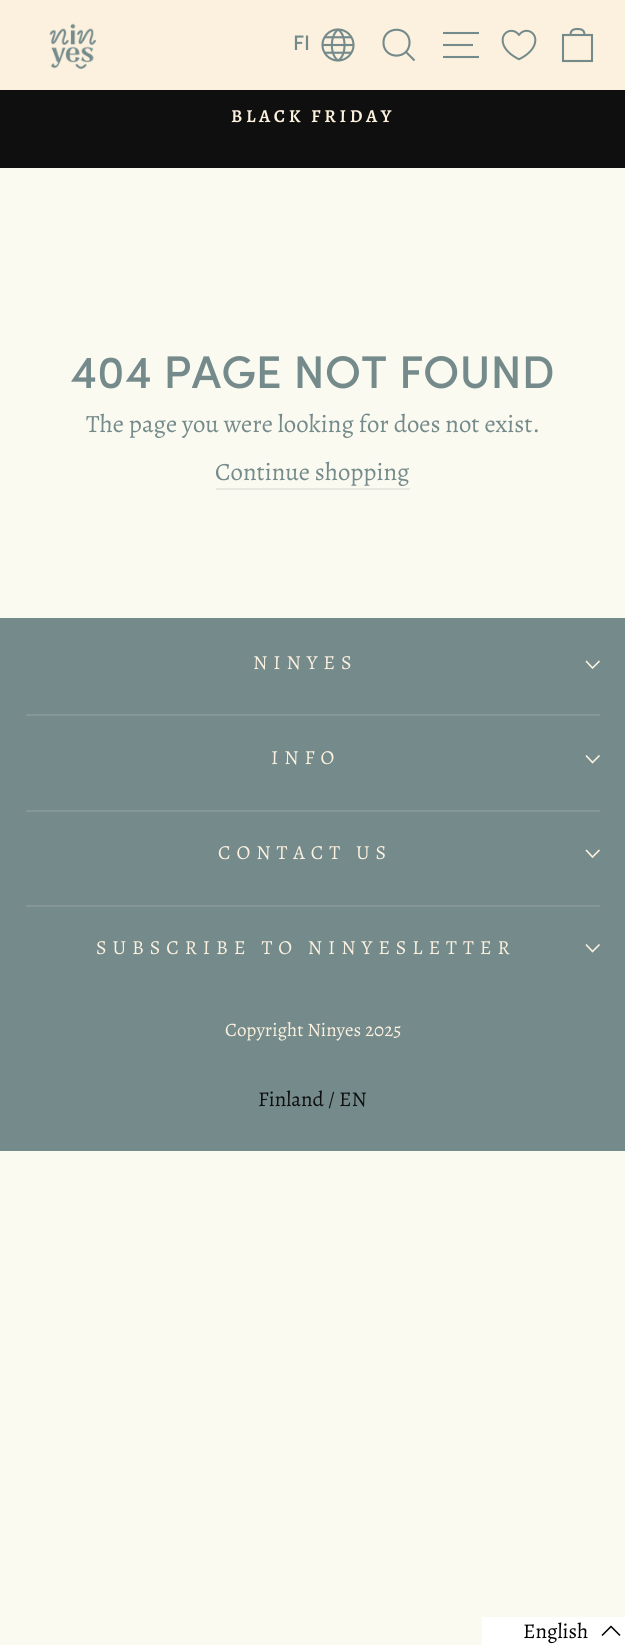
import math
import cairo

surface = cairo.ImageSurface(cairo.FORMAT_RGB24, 625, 1645)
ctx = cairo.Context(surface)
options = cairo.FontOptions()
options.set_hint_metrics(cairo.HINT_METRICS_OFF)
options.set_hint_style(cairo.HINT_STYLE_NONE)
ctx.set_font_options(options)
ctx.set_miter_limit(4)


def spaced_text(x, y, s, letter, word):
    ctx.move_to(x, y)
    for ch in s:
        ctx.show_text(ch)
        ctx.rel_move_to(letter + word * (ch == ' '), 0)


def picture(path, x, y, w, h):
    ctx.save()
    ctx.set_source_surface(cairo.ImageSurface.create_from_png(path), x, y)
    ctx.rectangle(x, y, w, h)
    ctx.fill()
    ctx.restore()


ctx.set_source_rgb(0.984, 0.98, 0.941)
ctx.paint()
ctx.set_source_rgb(0.988, 0.945, 0.871)
ctx.rectangle(0, 0, 625, 90)
ctx.fill()
picture("img1.png", 49, 23, 47, 46)
ctx.select_font_face("Sofia Medium")
ctx.set_font_size(21)
ctx.set_source_rgb(0.455, 0.541, 0.545)
ctx.move_to(293, 50)
ctx.show_text("FI")
picture("img2.png", 321, 28, 34, 34)
ctx.new_path()
ctx.move_to(409.5, 42.5)
ctx.curve_to(409.5, 60, 383.5, 60, 383.5, 42.5)
ctx.curve_to(383.5, 25.5, 409.5, 25.5, 409.5, 42.5)
ctx.close_path()
ctx.move_to(414.5, 60.5)
ctx.line_to(406, 52)
ctx.set_line_width(2.1)
ctx.stroke()
ctx.new_path()
ctx.move_to(443, 33)
ctx.line_to(479, 33)
ctx.move_to(443, 45)
ctx.line_to(473, 45)
ctx.move_to(443, 57)
ctx.line_to(479, 57)
ctx.stroke()
picture("img3.png", 501, 29, 36, 32)
ctx.new_path()
ctx.move_to(563, 35)
ctx.line_to(592, 35)
ctx.line_to(592, 61)
ctx.line_to(563, 61)
ctx.close_path()
ctx.move_to(570.5, 35)
ctx.curve_to(570.5, 30, 573.5, 29, 577.5, 29)
ctx.curve_to(581.5, 29, 584.5, 30, 584.5, 35)
ctx.stroke()
ctx.set_source_rgb(0.059, 0.059, 0.059)
ctx.rectangle(0, 90, 625, 78)
ctx.fill()
ctx.select_font_face("Alegreya SemiBold")
ctx.set_font_size(18.25)
ctx.set_source_rgb(0.988, 0.945, 0.871)
spaced_text(231, 122, "BLACK FRIDAY", 3.6, 0)
ctx.select_font_face("Sofia Medium")
ctx.set_font_size(45.9)
ctx.set_source_rgb(0.455, 0.541, 0.545)
ctx.move_to(70, 388)
ctx.show_text("404 PAGE NOT FOUND")
ctx.select_font_face("Alegreya")
ctx.set_font_size(24.8)
ctx.move_to(86, 432)
ctx.show_text("The page you were looking for does not exist.")
ctx.set_source_rgb(0.906, 0.914, 0.882)
ctx.rectangle(216, 488, 194, 2)
ctx.fill()
ctx.set_source_rgb(0.455, 0.541, 0.545)
ctx.move_to(215, 480)
ctx.show_text("Continue shopping")
ctx.rectangle(0, 618, 625, 533)
ctx.fill()
ctx.set_font_size(19.9)
ctx.set_source_rgb(0.988, 0.945, 0.871)
spaced_text(253, 669, "NINYES", 5.95, 0)
ctx.new_path()
ctx.move_to(586, 661)
ctx.line_to(592.5, 668)
ctx.line_to(599.5, 661)
ctx.set_line_width(1.6)
ctx.stroke()
ctx.set_source_rgb(0.518, 0.588, 0.584)
ctx.rectangle(26, 714, 574, 2)
ctx.fill()
ctx.set_source_rgb(0.988, 0.945, 0.871)
spaced_text(271, 764, "INFO", 5.95, 0)
ctx.new_path()
ctx.move_to(586, 755.5)
ctx.line_to(592.5, 762.5)
ctx.line_to(599.5, 755.5)
ctx.stroke()
ctx.set_source_rgb(0.518, 0.588, 0.584)
ctx.rectangle(26, 810, 574, 2)
ctx.fill()
ctx.set_source_rgb(0.988, 0.945, 0.871)
spaced_text(218, 859, "CONTACT US", 5.95, 0)
ctx.new_path()
ctx.move_to(586, 850)
ctx.line_to(592.5, 857)
ctx.line_to(599.5, 850)
ctx.stroke()
ctx.set_source_rgb(0.518, 0.588, 0.584)
ctx.rectangle(26, 905, 574, 2)
ctx.fill()
ctx.set_source_rgb(0.988, 0.945, 0.871)
spaced_text(96, 954, "SUBSCRIBE TO NINYESLETTER", 5.95, 0)
ctx.new_path()
ctx.move_to(586, 944.5)
ctx.line_to(592.5, 951.5)
ctx.line_to(599.5, 944.5)
ctx.stroke()
ctx.set_font_size(19)
ctx.move_to(225, 1036)
ctx.show_text("Copyright Ninyes 2025")
ctx.set_font_size(21)
ctx.set_source_rgb(0.059, 0.059, 0.059)
ctx.move_to(258, 1106)
ctx.show_text("Finland / EN")
ctx.set_source_rgb(1, 1, 1)
ctx.rectangle(482, 1617, 143, 28)
ctx.fill()
ctx.set_source_rgb(0, 0, 0)
ctx.move_to(523, 1638)
ctx.show_text("English")
ctx.new_path()
ctx.move_to(620, 1635.5)
ctx.line_to(611, 1626.5)
ctx.line_to(602, 1635.5)
ctx.set_line_width(1.5)
ctx.stroke()
surface.write_to_png("page.png")
